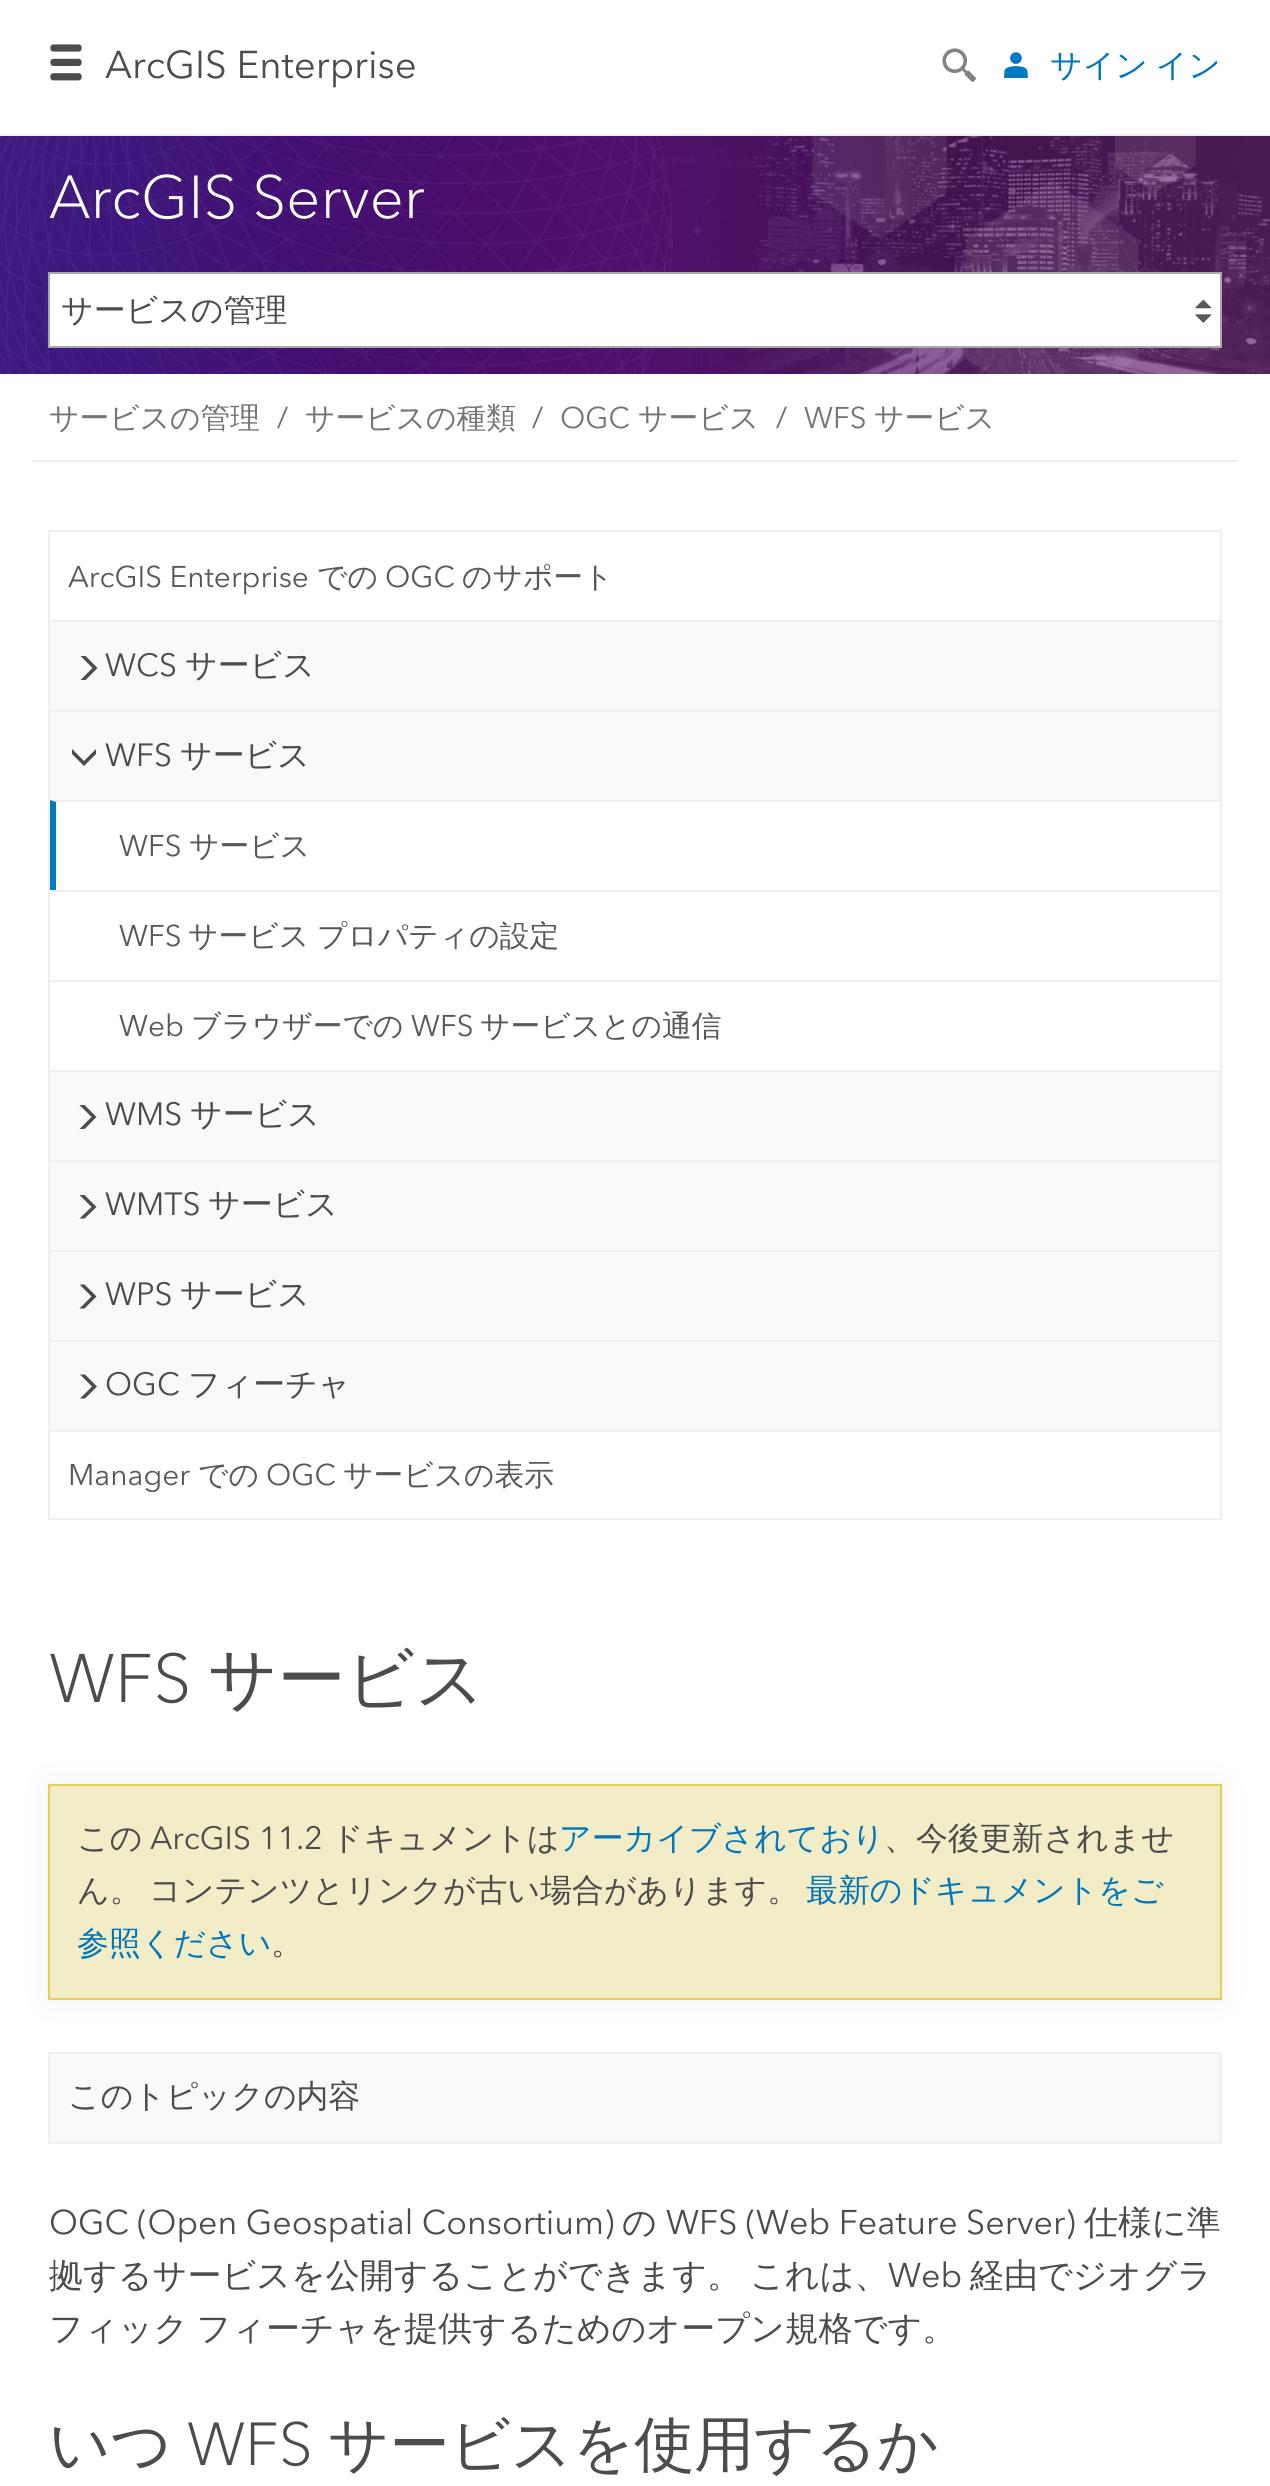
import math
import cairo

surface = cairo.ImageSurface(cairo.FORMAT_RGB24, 1270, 2486)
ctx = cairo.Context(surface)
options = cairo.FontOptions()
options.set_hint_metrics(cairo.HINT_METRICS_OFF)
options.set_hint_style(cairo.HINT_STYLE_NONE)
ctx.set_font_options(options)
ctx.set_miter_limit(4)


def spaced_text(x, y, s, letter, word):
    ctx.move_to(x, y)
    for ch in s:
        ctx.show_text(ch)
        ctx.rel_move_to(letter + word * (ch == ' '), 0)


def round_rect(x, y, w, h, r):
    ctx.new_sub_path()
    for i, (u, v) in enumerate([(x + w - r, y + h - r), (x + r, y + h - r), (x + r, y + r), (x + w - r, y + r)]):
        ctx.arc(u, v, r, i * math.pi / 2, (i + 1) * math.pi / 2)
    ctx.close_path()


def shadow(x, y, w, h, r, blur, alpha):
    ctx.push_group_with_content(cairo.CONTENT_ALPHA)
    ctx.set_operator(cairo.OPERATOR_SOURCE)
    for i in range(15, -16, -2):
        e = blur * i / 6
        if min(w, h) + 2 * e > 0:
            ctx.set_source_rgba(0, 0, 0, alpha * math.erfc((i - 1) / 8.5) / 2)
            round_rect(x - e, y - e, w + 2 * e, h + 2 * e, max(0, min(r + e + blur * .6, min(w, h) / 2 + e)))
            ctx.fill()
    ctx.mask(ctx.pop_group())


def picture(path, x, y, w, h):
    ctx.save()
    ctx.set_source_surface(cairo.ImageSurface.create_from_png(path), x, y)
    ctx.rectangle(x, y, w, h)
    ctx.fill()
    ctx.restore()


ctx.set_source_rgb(1, 1, 1)
ctx.paint()
ctx.set_source_rgb(0.937, 0.937, 0.937)
ctx.rectangle(0, 134, 1270, 2)
ctx.fill()
picture("img1.png", 50, 44, 32, 37)
ctx.select_font_face("Avenir Next")
ctx.set_font_size(38.5)
ctx.set_source_rgb(0.298, 0.298, 0.298)
ctx.move_to(105, 78)
ctx.show_text("ArcGIS Enterprise")
picture("img2.png", 942, 48, 34, 34)
picture("img3.png", 1004, 52, 24, 26)
ctx.select_font_face("WenQuanYi Zen Hei Medium")
ctx.set_font_size(31.9)
ctx.set_source_rgb(0, 0.463, 0.737)
spaced_text(1050, 76, "サイン イン", 0, -2)
picture("img4.png", 0, 136, 1270, 238)
ctx.select_font_face("Avenir Next Light")
ctx.set_font_size(60.1)
ctx.set_source_rgb(1, 1, 1)
ctx.move_to(49, 218)
ctx.show_text("ArcGIS Server")
ctx.rectangle(50, 274, 1170, 72)
ctx.fill()
picture("img5.png", 1195, 300, 17, 23)
ctx.rectangle(49, 273, 1172, 74)
ctx.set_source_rgb(0.663, 0.663, 0.663)
ctx.stroke()
ctx.select_font_face("WenQuanYi Zen Hei Medium")
ctx.set_font_size(31.9)
ctx.set_source_rgb(0.298, 0.298, 0.298)
ctx.move_to(61, 321)
ctx.show_text("サービスの管理")
ctx.set_source_rgb(0.929, 0.929, 0.929)
ctx.rectangle(32, 460, 1206, 2)
ctx.fill()
ctx.set_font_size(29.75)
ctx.set_source_rgb(0.459, 0.459, 0.459)
ctx.move_to(49, 428)
ctx.show_text("サービスの管理")
ctx.select_font_face("Avenir Next")
ctx.set_source_rgb(0.431, 0.431, 0.431)
ctx.move_to(277, 428)
ctx.show_text("/")
ctx.select_font_face("WenQuanYi Zen Hei Medium")
ctx.set_source_rgb(0.459, 0.459, 0.459)
ctx.move_to(305, 428)
ctx.show_text("サービスの種類")
ctx.select_font_face("Avenir Next")
ctx.set_source_rgb(0.431, 0.431, 0.431)
ctx.move_to(532, 428)
ctx.show_text("/")
ctx.set_source_rgb(0.459, 0.459, 0.459)
ctx.move_to(560, 428)
ctx.show_text("OGC")
ctx.select_font_face("WenQuanYi Zen Hei Medium")
ctx.move_to(638, 428)
ctx.show_text("サービス")
ctx.select_font_face("Avenir Next")
ctx.set_source_rgb(0.431, 0.431, 0.431)
ctx.move_to(776, 428)
ctx.show_text("/")
ctx.set_source_rgb(0.459, 0.459, 0.459)
ctx.move_to(804, 428)
ctx.show_text("WFS")
ctx.select_font_face("WenQuanYi Zen Hei Medium")
ctx.move_to(874, 428)
ctx.show_text("サービス")
ctx.set_source_rgb(0.937, 0.937, 0.937)
ctx.rectangle(1220, 530, 2, 990)
ctx.fill()
ctx.rectangle(48, 1518, 1174, 2)
ctx.fill()
ctx.rectangle(48, 530, 2, 990)
ctx.fill()
ctx.rectangle(50, 530, 1170, 2)
ctx.fill()
ctx.select_font_face("Avenir Next")
ctx.set_source_rgb(0.349, 0.349, 0.349)
ctx.move_to(68, 587)
ctx.show_text("ArcGIS Enterprise")
ctx.select_font_face("WenQuanYi Zen Hei Medium")
ctx.move_to(317, 587)
ctx.show_text("での")
ctx.select_font_face("Avenir Next")
ctx.move_to(385, 587)
ctx.show_text("OGC")
ctx.select_font_face("WenQuanYi Zen Hei Medium")
ctx.move_to(462, 587)
ctx.show_text("のサポート")
ctx.set_source_rgb(0.973, 0.973, 0.973)
ctx.rectangle(50, 622, 1170, 88)
ctx.fill()
ctx.set_source_rgb(0.937, 0.937, 0.937)
ctx.rectangle(50, 620, 1170, 2)
ctx.fill()
ctx.set_source_rgb(0.298, 0.298, 0.298)
ctx.new_path()
ctx.move_to(80.5, 656)
ctx.line_to(85.5, 656)
ctx.line_to(97.5, 668)
ctx.line_to(85.5, 680)
ctx.line_to(80.5, 680)
ctx.line_to(92.5, 668)
ctx.close_path()
ctx.fill()
ctx.select_font_face("Avenir Next")
ctx.set_font_size(31.9)
ctx.move_to(105, 676)
ctx.show_text("WCS")
ctx.select_font_face("WenQuanYi Zen Hei Medium")
ctx.move_to(185, 676)
ctx.show_text("サービス")
ctx.set_source_rgb(0.973, 0.973, 0.973)
ctx.rectangle(50, 712, 1170, 88)
ctx.fill()
ctx.set_source_rgb(0.937, 0.937, 0.937)
ctx.rectangle(50, 710, 1170, 2)
ctx.fill()
ctx.set_source_rgb(0.298, 0.298, 0.298)
ctx.new_path()
ctx.move_to(96, 749)
ctx.line_to(96, 754)
ctx.line_to(84, 766)
ctx.line_to(72, 754)
ctx.line_to(72, 749)
ctx.line_to(84, 761)
ctx.close_path()
ctx.fill()
ctx.select_font_face("Avenir Next")
ctx.move_to(105, 766)
ctx.show_text("WFS")
ctx.select_font_face("WenQuanYi Zen Hei Medium")
ctx.move_to(180, 766)
ctx.show_text("サービス")
ctx.set_source_rgb(0.937, 0.937, 0.937)
ctx.new_path()
ctx.move_to(50, 800)
ctx.line_to(1220, 800)
ctx.line_to(1220, 802)
ctx.line_to(56, 802)
ctx.close_path()
ctx.fill()
ctx.set_source_rgb(0, 0.475, 0.757)
ctx.new_path()
ctx.move_to(50, 890)
ctx.line_to(50, 800)
ctx.line_to(56, 802)
ctx.line_to(56, 890)
ctx.close_path()
ctx.fill()
ctx.select_font_face("Avenir Next")
ctx.set_font_size(29.75)
ctx.set_source_rgb(0.349, 0.349, 0.349)
ctx.move_to(119, 856)
ctx.show_text("WFS")
ctx.select_font_face("WenQuanYi Zen Hei Medium")
ctx.move_to(189, 856)
ctx.show_text("サービス")
ctx.set_source_rgb(0.937, 0.937, 0.937)
ctx.rectangle(50, 890, 1170, 2)
ctx.fill()
ctx.select_font_face("Avenir Next")
ctx.set_source_rgb(0.349, 0.349, 0.349)
ctx.move_to(119, 946)
ctx.show_text("WFS")
ctx.select_font_face("WenQuanYi Zen Hei Medium")
spaced_text(188, 946, "サービス プロパティの設定", 0, -1)
ctx.set_source_rgb(0.937, 0.937, 0.937)
ctx.rectangle(50, 980, 1170, 2)
ctx.fill()
ctx.select_font_face("Avenir Next")
ctx.set_source_rgb(0.349, 0.349, 0.349)
ctx.move_to(119, 1036)
ctx.show_text("Web")
ctx.select_font_face("WenQuanYi Zen Hei Medium")
ctx.move_to(191, 1036)
ctx.show_text("ブラウザーでの")
ctx.select_font_face("Avenir Next")
ctx.move_to(411, 1036)
ctx.show_text("WFS")
ctx.select_font_face("WenQuanYi Zen Hei Medium")
ctx.move_to(480, 1036)
ctx.show_text("サービスとの通信")
ctx.set_source_rgb(0.973, 0.973, 0.973)
ctx.rectangle(50, 1072, 1170, 88)
ctx.fill()
ctx.set_source_rgb(0.937, 0.937, 0.937)
ctx.rectangle(50, 1070, 1170, 2)
ctx.fill()
ctx.set_source_rgb(0.298, 0.298, 0.298)
ctx.new_path()
ctx.move_to(79.5, 1105)
ctx.line_to(84.5, 1105)
ctx.line_to(96.5, 1117)
ctx.line_to(84.5, 1129)
ctx.line_to(79.5, 1129)
ctx.line_to(91.5, 1117)
ctx.close_path()
ctx.fill()
ctx.select_font_face("Avenir Next")
ctx.set_font_size(31.9)
ctx.move_to(105, 1125)
ctx.show_text("WMS")
ctx.select_font_face("WenQuanYi Zen Hei Medium")
ctx.move_to(190, 1125)
ctx.show_text("サービス")
ctx.set_source_rgb(0.973, 0.973, 0.973)
ctx.rectangle(50, 1162, 1170, 88)
ctx.fill()
ctx.set_source_rgb(0.937, 0.937, 0.937)
ctx.rectangle(50, 1160, 1170, 2)
ctx.fill()
ctx.set_source_rgb(0.298, 0.298, 0.298)
ctx.new_path()
ctx.move_to(79.5, 1195)
ctx.line_to(84.5, 1195)
ctx.line_to(96.5, 1207)
ctx.line_to(84.5, 1218.5)
ctx.line_to(79.5, 1218.5)
ctx.line_to(91.5, 1207)
ctx.close_path()
ctx.fill()
ctx.select_font_face("Avenir Next")
ctx.move_to(105, 1215)
ctx.show_text("WMTS")
ctx.select_font_face("WenQuanYi Zen Hei Medium")
ctx.move_to(208, 1215)
ctx.show_text("サービス")
ctx.set_source_rgb(0.973, 0.973, 0.973)
ctx.rectangle(50, 1252, 1170, 88)
ctx.fill()
ctx.set_source_rgb(0.937, 0.937, 0.937)
ctx.rectangle(50, 1250, 1170, 2)
ctx.fill()
ctx.set_source_rgb(0.298, 0.298, 0.298)
ctx.new_path()
ctx.move_to(79.5, 1284.5)
ctx.line_to(84.5, 1284.5)
ctx.line_to(96.5, 1296.5)
ctx.line_to(84.5, 1308.5)
ctx.line_to(79.5, 1308.5)
ctx.line_to(91.5, 1296.5)
ctx.close_path()
ctx.fill()
ctx.select_font_face("Avenir Next")
ctx.move_to(105, 1305)
ctx.show_text("WPS")
ctx.select_font_face("WenQuanYi Zen Hei Medium")
ctx.move_to(180, 1305)
ctx.show_text("サービス")
ctx.set_source_rgb(0.973, 0.973, 0.973)
ctx.rectangle(50, 1342, 1170, 88)
ctx.fill()
ctx.set_source_rgb(0.937, 0.937, 0.937)
ctx.rectangle(50, 1340, 1170, 2)
ctx.fill()
ctx.set_source_rgb(0.298, 0.298, 0.298)
ctx.new_path()
ctx.move_to(80, 1374.5)
ctx.line_to(85, 1374.5)
ctx.line_to(97, 1386.5)
ctx.line_to(85, 1398.5)
ctx.line_to(80, 1398.5)
ctx.line_to(92, 1386.5)
ctx.close_path()
ctx.fill()
ctx.select_font_face("Avenir Next")
ctx.move_to(105, 1395)
ctx.show_text("OGC")
ctx.select_font_face("WenQuanYi Zen Hei Medium")
ctx.move_to(188, 1395)
ctx.show_text("フィーチャ")
ctx.set_source_rgb(0.937, 0.937, 0.937)
ctx.rectangle(50, 1430, 1170, 2)
ctx.fill()
ctx.select_font_face("Avenir Next")
ctx.set_font_size(29.75)
ctx.set_source_rgb(0.349, 0.349, 0.349)
ctx.move_to(68, 1485)
ctx.show_text("Manager")
ctx.select_font_face("WenQuanYi Zen Hei Medium")
ctx.move_to(198, 1485)
ctx.show_text("での")
ctx.select_font_face("Avenir Next")
ctx.move_to(266, 1485)
ctx.show_text("OGC")
ctx.select_font_face("WenQuanYi Zen Hei Medium")
ctx.move_to(343, 1485)
ctx.show_text("サービスの表示")
ctx.select_font_face("Avenir Next Light")
ctx.set_font_size(68)
ctx.set_source_rgb(0.298, 0.298, 0.298)
ctx.move_to(49, 1702)
ctx.show_text("WFS")
ctx.select_font_face("WenQuanYi Zen Hei Medium")
ctx.move_to(208, 1702)
ctx.show_text("サービス")
ctx.set_source_rgb(0, 0, 0)
shadow(48, 1784, 1174, 216, 0, 16, 0.05)
ctx.set_source_rgb(0.953, 0.929, 0.78)
ctx.rectangle(49, 1785, 1172, 214)
ctx.fill_preserve()
ctx.set_source_rgb(0.894, 0.82, 0.329)
ctx.stroke()
ctx.set_font_size(31.9)
ctx.set_source_rgb(0.298, 0.298, 0.298)
ctx.move_to(77, 1849)
ctx.show_text("この")
ctx.select_font_face("Avenir Next")
ctx.move_to(150, 1849)
ctx.show_text("ArcGIS 11.2")
ctx.select_font_face("WenQuanYi Zen Hei Medium")
ctx.move_to(331, 1849)
ctx.show_text("ドキュメントは")
ctx.set_source_rgb(0, 0.463, 0.737)
ctx.move_to(559, 1849)
ctx.show_text("アーカイブされており")
ctx.set_source_rgb(0.298, 0.298, 0.298)
ctx.move_to(884, 1849)
ctx.show_text("、今後更新されませ")
spaced_text(77, 1901, "ん。 コンテンツとリンクが古い場合があります。", 0, -2)
ctx.set_source_rgb(0, 0.463, 0.737)
ctx.move_to(806, 1901)
ctx.show_text("最新のドキュメントをご")
ctx.move_to(77, 1954)
ctx.show_text("参照ください")
ctx.set_source_rgb(0.298, 0.298, 0.298)
ctx.move_to(271, 1954)
ctx.show_text("。")
ctx.set_source_rgb(0.937, 0.937, 0.937)
ctx.rectangle(1220, 2052, 2, 92)
ctx.fill()
ctx.rectangle(48, 2142, 1174, 2)
ctx.fill()
ctx.rectangle(48, 2052, 2, 92)
ctx.fill()
ctx.set_source_rgb(0.973, 0.973, 0.973)
ctx.rectangle(50, 2054, 1170, 88)
ctx.fill()
ctx.set_source_rgb(0.937, 0.937, 0.937)
ctx.rectangle(50, 2052, 1170, 2)
ctx.fill()
ctx.set_source_rgb(0.298, 0.298, 0.298)
ctx.move_to(68, 2107)
ctx.show_text("このトピックの内容")
ctx.select_font_face("Avenir Next")
ctx.set_font_size(34)
ctx.move_to(49, 2234)
ctx.show_text("OGC (Open Geospatial Consortium)")
ctx.select_font_face("WenQuanYi Zen Hei Medium")
ctx.move_to(622, 2234)
ctx.show_text("の")
ctx.select_font_face("Avenir Next")
ctx.move_to(666, 2234)
ctx.show_text("WFS (Web Feature Server)")
ctx.select_font_face("WenQuanYi Zen Hei Medium")
ctx.move_to(1084, 2234)
ctx.show_text("仕様に準")
spaced_text(49, 2287, "拠するサービスを公開することができます。 これは、", 0, -1)
ctx.select_font_face("Avenir Next")
ctx.move_to(888, 2287)
ctx.show_text("Web")
ctx.select_font_face("WenQuanYi Zen Hei Medium")
ctx.move_to(970, 2287)
ctx.show_text("経由でジオグラ")
spaced_text(49, 2340, "フィック フィーチャを提供するためのオープン規格です。", 0, -2)
ctx.set_font_size(60.1)
ctx.move_to(49, 2465)
ctx.show_text("いつ")
ctx.select_font_face("Avenir Next Light")
ctx.move_to(187, 2465)
ctx.show_text("WFS")
ctx.select_font_face("WenQuanYi Zen Hei Medium")
ctx.move_to(328, 2465)
ctx.show_text("サービスを使用するか")
surface.write_to_png("page.png")
